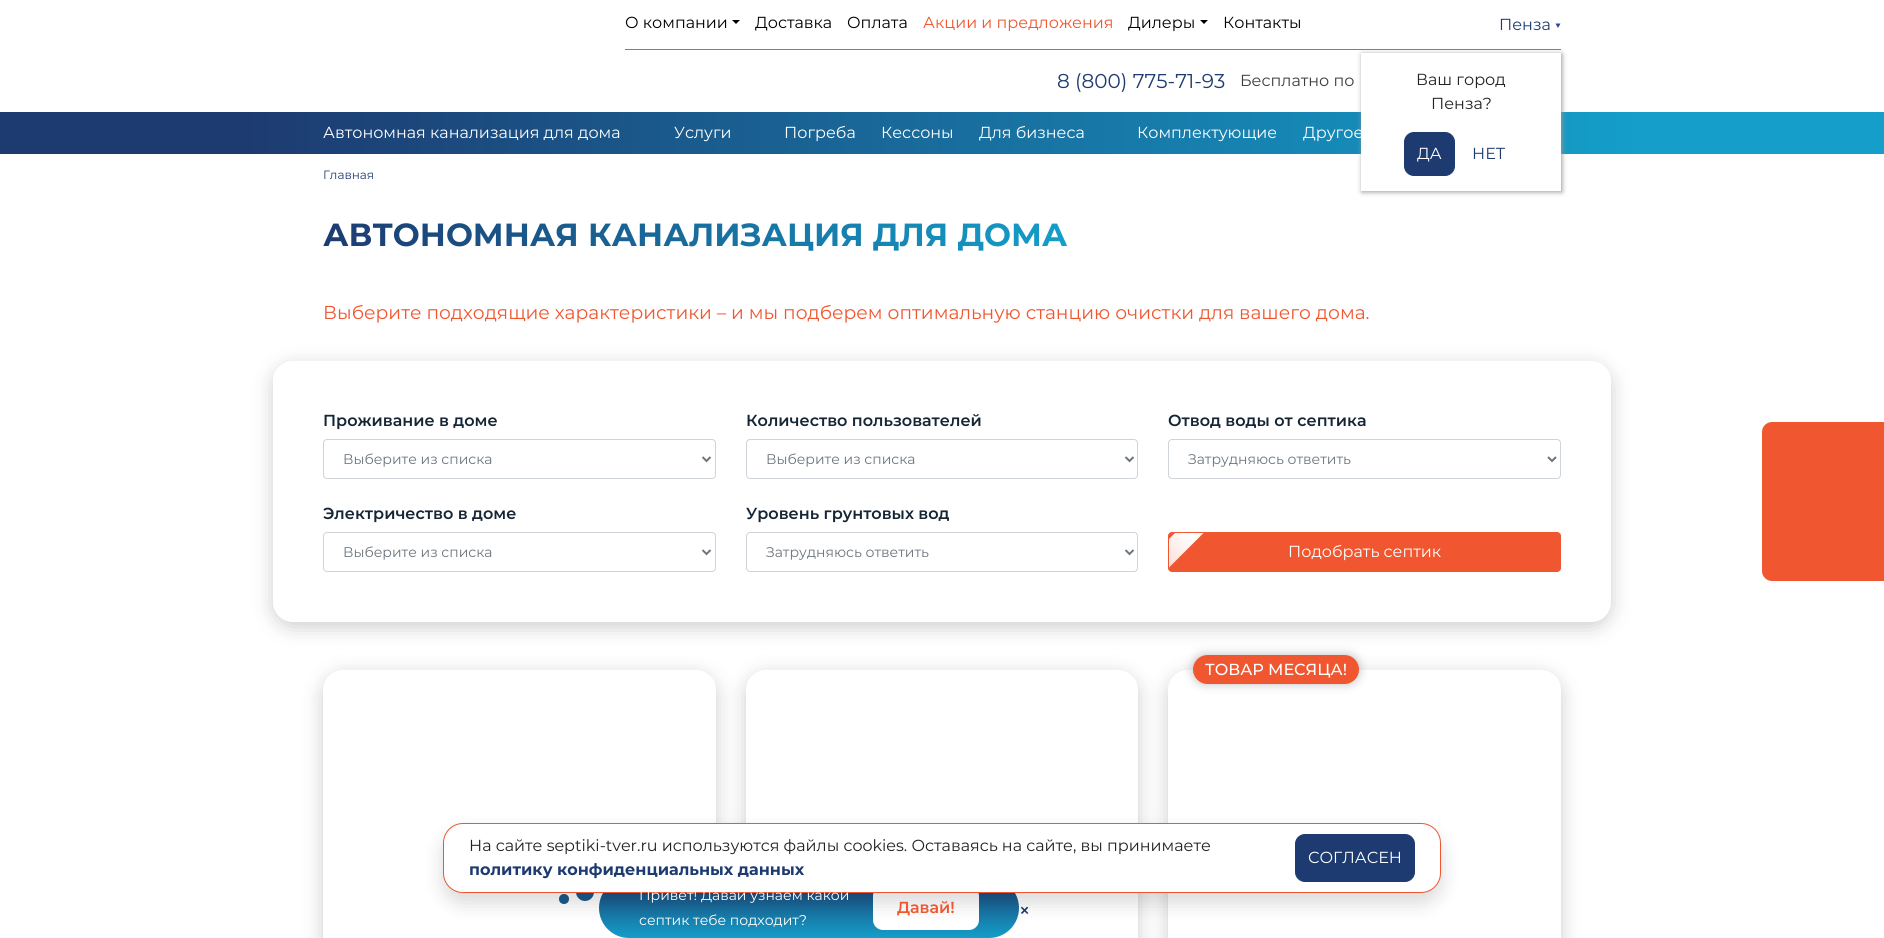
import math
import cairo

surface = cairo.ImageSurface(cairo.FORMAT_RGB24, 1884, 938)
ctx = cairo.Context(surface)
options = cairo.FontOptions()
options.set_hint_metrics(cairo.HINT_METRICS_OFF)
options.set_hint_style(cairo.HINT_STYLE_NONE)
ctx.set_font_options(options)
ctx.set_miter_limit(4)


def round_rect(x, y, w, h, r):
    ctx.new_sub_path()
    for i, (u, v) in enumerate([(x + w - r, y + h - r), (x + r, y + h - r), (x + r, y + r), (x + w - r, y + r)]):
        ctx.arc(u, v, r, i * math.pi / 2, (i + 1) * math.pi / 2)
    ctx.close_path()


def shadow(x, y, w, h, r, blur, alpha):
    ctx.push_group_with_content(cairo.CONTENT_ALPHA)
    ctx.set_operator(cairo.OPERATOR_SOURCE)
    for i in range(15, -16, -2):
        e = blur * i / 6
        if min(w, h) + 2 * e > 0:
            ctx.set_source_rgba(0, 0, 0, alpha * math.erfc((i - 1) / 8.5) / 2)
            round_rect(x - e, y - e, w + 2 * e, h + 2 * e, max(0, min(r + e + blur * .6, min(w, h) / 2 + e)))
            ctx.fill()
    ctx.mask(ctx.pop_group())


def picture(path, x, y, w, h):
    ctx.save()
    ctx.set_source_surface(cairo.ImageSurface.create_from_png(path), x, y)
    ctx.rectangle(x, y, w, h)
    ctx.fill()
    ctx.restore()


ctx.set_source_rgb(1, 1, 1)
ctx.paint()
ctx.select_font_face("Montserrat")
ctx.set_font_size(16)
ctx.set_source_rgb(0, 0, 0)
ctx.move_to(625, 28)
ctx.show_text("О компании")
ctx.new_path()
ctx.move_to(732, 20)
ctx.line_to(740, 20)
ctx.line_to(736, 24)
ctx.close_path()
ctx.fill()
ctx.move_to(755, 28)
ctx.show_text("Доставка")
ctx.move_to(847, 28)
ctx.show_text("Оплата")
ctx.set_source_rgb(0.941, 0.337, 0.188)
ctx.move_to(923, 28)
ctx.show_text("Акции и предложения")
ctx.set_source_rgb(0, 0, 0)
ctx.move_to(1128, 28)
ctx.show_text("Дилеры")
ctx.new_path()
ctx.move_to(1200, 20)
ctx.line_to(1208, 20)
ctx.line_to(1204, 24)
ctx.close_path()
ctx.fill()
ctx.move_to(1223, 28)
ctx.show_text("Контакты")
ctx.set_source_rgb(0.114, 0.231, 0.443)
ctx.move_to(1499, 30)
ctx.show_text("Пенза")
ctx.set_source_rgb(0.196, 0.255, 0.604)
ctx.new_path()
ctx.move_to(1558, 28)
ctx.line_to(1555.5, 23.5)
ctx.line_to(1560.5, 23.5)
ctx.close_path()
ctx.fill()
ctx.set_source_rgb(0.941, 0.337, 0.188)
ctx.rectangle(625, 49, 936, 1)
ctx.fill()
gradient = cairo.LinearGradient(0, 133, 1884, 133)
gradient.add_color_stop_rgba(0.13, 0.114, 0.231, 0.443, 1)
gradient.add_color_stop_rgba(0.87, 0.078, 0.62, 0.788, 1)
ctx.set_source(gradient)
ctx.rectangle(0, 112, 1884, 42)
ctx.fill()
ctx.set_source_rgb(0.6, 0.6, 0.6)
shadow(1362, 54, 200, 138, 0, 2.5, 1)
ctx.set_source_rgb(1, 1, 1)
ctx.rectangle(1361, 53, 200, 138)
ctx.fill()
ctx.set_source_rgb(0.133, 0.133, 0.133)
ctx.move_to(1416, 85)
ctx.show_text("Ваш город")
ctx.move_to(1431, 109)
ctx.show_text("Пенза?")
ctx.set_source_rgb(0.114, 0.231, 0.443)
round_rect(1404.5, 132.5, 50, 43, 9.5)
ctx.fill_preserve()
ctx.set_line_width(1)
ctx.stroke()
ctx.set_source_rgb(1, 1, 1)
ctx.move_to(1417, 159)
ctx.show_text("ДА")
ctx.set_source_rgb(0.114, 0.231, 0.443)
ctx.move_to(1472, 159)
ctx.show_text("НЕТ")
ctx.set_font_size(20)
ctx.move_to(1057, 88)
ctx.show_text("8 (800) 775-71-93")
ctx.set_font_size(16)
ctx.set_source_rgb(0.239, 0.239, 0.239)
ctx.move_to(1240, 86)
ctx.show_text("Бесплатно по")
ctx.set_source_rgb(1, 1, 1)
ctx.move_to(323, 138)
ctx.show_text("Автономная канализация для дома")
ctx.move_to(674, 138)
ctx.show_text("Услуги")
ctx.move_to(784, 138)
ctx.show_text("Погреба")
ctx.move_to(881, 138)
ctx.show_text("Кессоны")
ctx.move_to(979, 138)
ctx.show_text("Для бизнеса")
ctx.move_to(1137, 138)
ctx.show_text("Комплектующие")
ctx.move_to(1303, 138)
ctx.show_text("Другое")
ctx.set_font_size(12)
ctx.set_source_rgb(0.114, 0.231, 0.443)
ctx.move_to(323, 179)
ctx.show_text("Главная")
ctx.select_font_face("Montserrat", cairo.FONT_SLANT_NORMAL, cairo.FONT_WEIGHT_BOLD)
ctx.set_font_size(32)
gradient = cairo.LinearGradient(323, 235, 1067, 234)
gradient.add_color_stop_rgba(0, 0.114, 0.231, 0.443, 1)
gradient.add_color_stop_rgba(1, 0.078, 0.62, 0.788, 1)
ctx.set_source(gradient)
ctx.move_to(323, 246)
ctx.show_text("АВТОНОМНАЯ КАНАЛИЗАЦИЯ ДЛЯ ДОМА")
ctx.select_font_face("Montserrat")
ctx.set_font_size(18.67)
ctx.set_source_rgb(0.941, 0.337, 0.188)
ctx.move_to(323, 319)
ctx.show_text("Выберите подходящие характеристики – и мы подберем оптимальную станцию очистки для вашего дома.")
ctx.save()
ctx.set_fill_rule(cairo.FILL_RULE_EVEN_ODD)
ctx.new_path()
ctx.move_to(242, 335)
ctx.line_to(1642, 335)
ctx.line_to(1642, 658)
ctx.line_to(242, 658)
ctx.close_path()
ctx.move_to(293, 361)
ctx.line_to(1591, 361)
ctx.curve_to(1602, 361, 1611, 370, 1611, 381)
ctx.line_to(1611, 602)
ctx.curve_to(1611, 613, 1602, 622, 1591, 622)
ctx.line_to(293, 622)
ctx.curve_to(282, 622, 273, 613, 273, 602)
ctx.line_to(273, 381)
ctx.curve_to(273, 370, 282, 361, 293, 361)
ctx.close_path()
ctx.clip()
ctx.set_source_rgb(0, 0, 0)
shadow(273, 366, 1338, 261, 20, 10, 0.2)
ctx.restore()
ctx.select_font_face("Montserrat SemiBold")
ctx.set_font_size(16)
ctx.set_source_rgb(0.082, 0.145, 0.212)
ctx.move_to(323, 426)
ctx.show_text("Проживание в доме")
round_rect(323.5, 439.5, 392, 39, 3.5)
ctx.set_source_rgb(0.808, 0.831, 0.855)
ctx.stroke()
ctx.new_path()
ctx.move_to(702.5, 457)
ctx.line_to(706.5, 461)
ctx.line_to(710.5, 457)
ctx.set_source_rgb(0.424, 0.459, 0.49)
ctx.set_line_width(2)
ctx.stroke()
ctx.select_font_face("Montserrat")
ctx.set_font_size(14)
ctx.move_to(343, 464)
ctx.show_text("Выберите из списка")
ctx.select_font_face("Montserrat SemiBold")
ctx.set_font_size(16)
ctx.set_source_rgb(0.082, 0.145, 0.212)
ctx.move_to(746, 426)
ctx.show_text("Количество пользователей")
round_rect(746.5, 439.5, 391, 39, 3.5)
ctx.set_source_rgb(0.808, 0.831, 0.855)
ctx.set_line_width(1)
ctx.stroke()
ctx.new_path()
ctx.move_to(1125.5, 457)
ctx.line_to(1129.5, 461)
ctx.line_to(1133.5, 457)
ctx.set_source_rgb(0.424, 0.459, 0.49)
ctx.set_line_width(2)
ctx.stroke()
ctx.select_font_face("Montserrat")
ctx.set_font_size(14)
ctx.move_to(766, 464)
ctx.show_text("Выберите из списка")
ctx.select_font_face("Montserrat SemiBold")
ctx.set_font_size(16)
ctx.set_source_rgb(0.082, 0.145, 0.212)
ctx.move_to(1168, 426)
ctx.show_text("Отвод воды от септика")
round_rect(1168.5, 439.5, 392, 39, 3.5)
ctx.set_source_rgb(0.808, 0.831, 0.855)
ctx.set_line_width(1)
ctx.stroke()
ctx.new_path()
ctx.move_to(1548, 457)
ctx.line_to(1552, 461)
ctx.line_to(1556, 457)
ctx.set_source_rgb(0.424, 0.459, 0.49)
ctx.set_line_width(2)
ctx.stroke()
ctx.select_font_face("Montserrat")
ctx.set_font_size(14)
ctx.move_to(1188, 464)
ctx.show_text("Затрудняюсь ответить")
ctx.select_font_face("Montserrat SemiBold")
ctx.set_font_size(16)
ctx.set_source_rgb(0.082, 0.145, 0.212)
ctx.move_to(323, 519)
ctx.show_text("Электричество в доме")
round_rect(323.5, 532.5, 392, 39, 3.5)
ctx.set_source_rgb(0.808, 0.831, 0.855)
ctx.set_line_width(1)
ctx.stroke()
ctx.new_path()
ctx.move_to(702.5, 550)
ctx.line_to(706.5, 554)
ctx.line_to(710.5, 550)
ctx.set_source_rgb(0.424, 0.459, 0.49)
ctx.set_line_width(2)
ctx.stroke()
ctx.select_font_face("Montserrat")
ctx.set_font_size(14)
ctx.move_to(343, 557)
ctx.show_text("Выберите из списка")
ctx.select_font_face("Montserrat SemiBold")
ctx.set_font_size(16)
ctx.set_source_rgb(0.082, 0.145, 0.212)
ctx.move_to(746, 519)
ctx.show_text("Уровень грунтовых вод")
round_rect(746.5, 532.5, 391, 39, 3.5)
ctx.set_source_rgb(0.808, 0.831, 0.855)
ctx.set_line_width(1)
ctx.stroke()
ctx.new_path()
ctx.move_to(1125.5, 550)
ctx.line_to(1129.5, 554)
ctx.line_to(1133.5, 550)
ctx.set_source_rgb(0.424, 0.459, 0.49)
ctx.set_line_width(2)
ctx.stroke()
ctx.select_font_face("Montserrat")
ctx.set_font_size(14)
ctx.move_to(766, 557)
ctx.show_text("Затрудняюсь ответить")
ctx.set_source_rgb(0.941, 0.337, 0.188)
round_rect(1168.5, 532.5, 392, 39, 3.5)
ctx.fill_preserve()
ctx.set_line_width(1)
ctx.stroke()
gradient = cairo.LinearGradient(1260, 462, 1119, 604)
gradient.add_color_stop_rgba(0, 0.973, 0.671, 0.596, 1)
gradient.add_color_stop_rgba(0.5, 1, 1, 1, 1)
gradient.add_color_stop_rgba(1, 0.973, 0.671, 0.596, 1)
ctx.set_source(gradient)
ctx.new_path()
ctx.move_to(1169, 539)
ctx.line_to(1175, 533)
ctx.line_to(1203.5, 533)
ctx.line_to(1169, 567.5)
ctx.close_path()
ctx.fill()
ctx.set_font_size(16)
ctx.set_source_rgb(1, 1, 1)
ctx.move_to(1288, 557)
ctx.show_text("Подобрать септик")
ctx.set_source_rgb(0, 0, 0)
shadow(323, 675, 393, 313, 20, 10, 0.2)
ctx.set_source_rgb(1, 1, 1)
ctx.new_path()
ctx.move_to(343, 670)
ctx.line_to(696, 670)
ctx.curve_to(707, 670, 716, 679, 716, 690)
ctx.line_to(716, 938)
ctx.line_to(323, 938)
ctx.line_to(323, 690)
ctx.curve_to(323, 679, 332, 670, 343, 670)
ctx.close_path()
ctx.fill()
ctx.set_source_rgb(0, 0, 0)
shadow(746, 675, 392, 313, 20, 10, 0.2)
ctx.set_source_rgb(1, 1, 1)
ctx.new_path()
ctx.move_to(766, 670)
ctx.line_to(1118, 670)
ctx.curve_to(1129, 670, 1138, 679, 1138, 690)
ctx.line_to(1138, 938)
ctx.line_to(746, 938)
ctx.line_to(746, 690)
ctx.curve_to(746, 679, 755, 670, 766, 670)
ctx.close_path()
ctx.fill()
ctx.set_source_rgb(0, 0, 0)
shadow(1168, 675, 393, 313, 20, 10, 0.2)
ctx.set_source_rgb(1, 1, 1)
ctx.new_path()
ctx.move_to(1188, 670)
ctx.line_to(1541, 670)
ctx.curve_to(1552, 670, 1561, 679, 1561, 690)
ctx.line_to(1561, 938)
ctx.line_to(1168, 938)
ctx.line_to(1168, 690)
ctx.curve_to(1168, 679, 1177, 670, 1188, 670)
ctx.close_path()
ctx.fill()
ctx.set_source_rgb(0, 0, 0)
shadow(1193, 655, 166, 29, 14.5, 5, 0.25)
ctx.set_source_rgb(0.941, 0.337, 0.188)
round_rect(1193, 655, 166, 29, 14.5)
ctx.fill()
ctx.select_font_face("Montserrat Medium")
ctx.set_source_rgb(1, 1, 1)
ctx.move_to(1205, 675)
ctx.show_text("ТОВАР МЕСЯЦА!")
ctx.set_source_rgb(0.941, 0.337, 0.188)
ctx.new_path()
ctx.move_to(1772, 422)
ctx.line_to(1884, 422)
ctx.line_to(1884, 581)
ctx.line_to(1772, 581)
ctx.curve_to(1766.5, 581, 1762, 576.5, 1762, 571)
ctx.line_to(1762, 432)
ctx.curve_to(1762, 426.5, 1766.5, 422, 1772, 422)
ctx.close_path()
ctx.fill()
gradient = cairo.LinearGradient(809, 878, 809, 938)
gradient.add_color_stop_rgba(0, 0.114, 0.231, 0.443, 1)
gradient.add_color_stop_rgba(1, 0.078, 0.62, 0.788, 1)
gradient.add_color_stop_rgba(1, 0.078, 0.62, 0.788, 0)
ctx.set_source(gradient)
round_rect(599, 878, 420, 60, 30)
ctx.fill()
ctx.set_source_rgb(0.106, 0.353, 0.549)
ctx.arc(585, 892, 9, 0, 2 * math.pi)
ctx.fill()
ctx.arc(564, 899, 5, 0, 2 * math.pi)
ctx.fill()
ctx.set_source_rgb(1, 1, 1)
round_rect(873, 886, 106, 44, 10)
ctx.fill()
picture("img1.png", 1020, 906, 9, 8)
ctx.set_source_rgb(0, 0, 0)
shadow(443, 833, 998, 70, 20, 10, 0.15)
ctx.set_source_rgb(1, 1, 1)
round_rect(443.5, 823.5, 997, 69, 19.5)
ctx.fill_preserve()
ctx.set_source_rgb(0.941, 0.337, 0.188)
ctx.stroke()
ctx.select_font_face("Montserrat")
ctx.set_source_rgb(0.133, 0.133, 0.133)
ctx.move_to(469, 851)
ctx.show_text("На сайте septiki-tver.ru используются файлы cookies. Оставаясь на сайте, вы принимаете")
ctx.select_font_face("Montserrat", cairo.FONT_SLANT_NORMAL, cairo.FONT_WEIGHT_BOLD)
ctx.set_source_rgb(0.114, 0.231, 0.443)
ctx.move_to(469, 875)
ctx.show_text("политику конфиденциальных данных")
round_rect(1295.5, 834.5, 119, 47, 9.5)
ctx.fill_preserve()
ctx.stroke()
ctx.select_font_face("Montserrat")
ctx.set_source_rgb(1, 1, 1)
ctx.move_to(1308, 863)
ctx.show_text("СОГЛАСЕН")
ctx.set_font_size(14)
ctx.move_to(639, 900)
ctx.show_text("Привет! Давай узнаем какой")
ctx.move_to(639, 925)
ctx.show_text("септик тебе подходит?")
ctx.select_font_face("Montserrat SemiBold")
ctx.set_font_size(16)
ctx.set_source_rgb(0.941, 0.337, 0.188)
ctx.move_to(897, 913)
ctx.show_text("Давай!")
surface.write_to_png("page.png")
